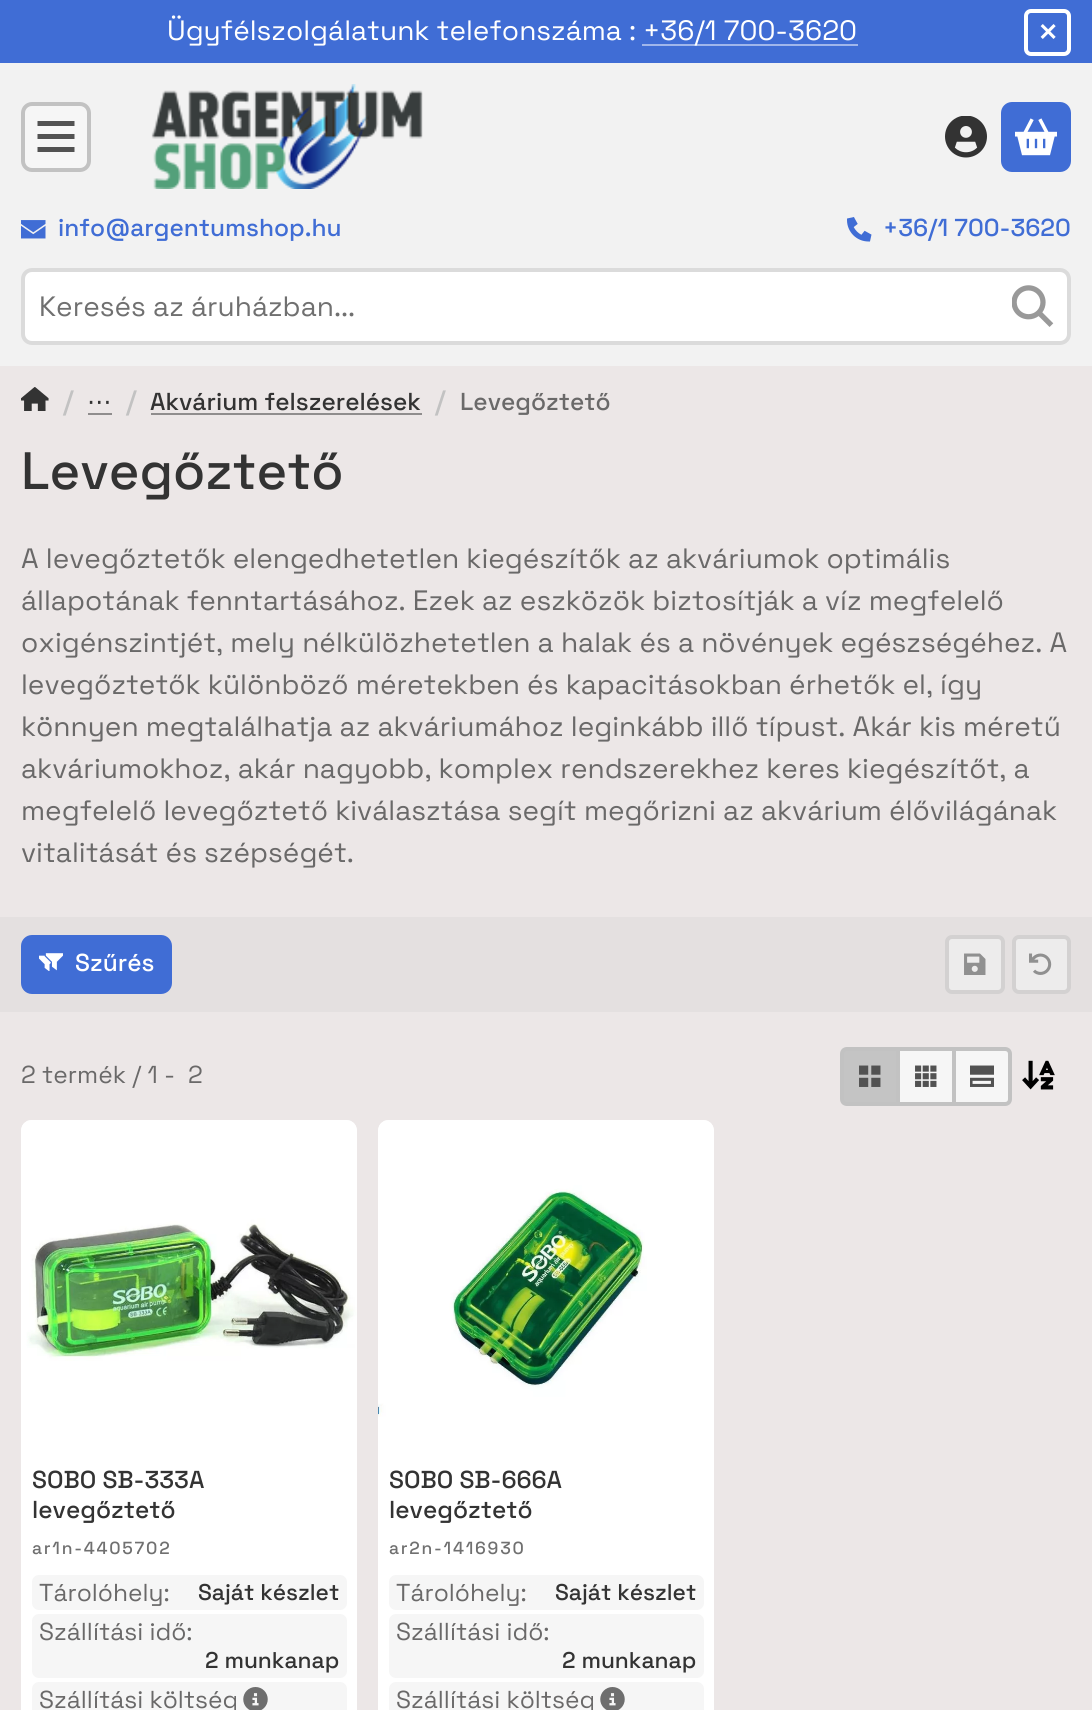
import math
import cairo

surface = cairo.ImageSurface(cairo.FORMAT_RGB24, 1092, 1710)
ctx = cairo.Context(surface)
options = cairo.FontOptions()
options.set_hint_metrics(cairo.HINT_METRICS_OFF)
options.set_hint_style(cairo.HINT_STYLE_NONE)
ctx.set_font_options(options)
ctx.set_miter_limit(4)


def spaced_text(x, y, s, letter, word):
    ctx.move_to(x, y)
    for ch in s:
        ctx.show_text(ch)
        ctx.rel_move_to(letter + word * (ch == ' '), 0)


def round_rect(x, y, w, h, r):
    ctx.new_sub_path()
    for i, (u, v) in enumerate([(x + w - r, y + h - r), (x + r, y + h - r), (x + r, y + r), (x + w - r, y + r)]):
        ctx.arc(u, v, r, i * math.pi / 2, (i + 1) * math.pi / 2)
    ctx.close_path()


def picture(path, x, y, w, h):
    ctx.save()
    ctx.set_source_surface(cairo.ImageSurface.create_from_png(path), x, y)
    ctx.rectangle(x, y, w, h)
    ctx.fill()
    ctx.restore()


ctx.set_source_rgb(0.922, 0.906, 0.906)
ctx.paint()
ctx.set_source_rgb(0.251, 0.427, 0.835)
ctx.rectangle(0, 0, 1092, 63)
ctx.fill()
ctx.select_font_face("Space Grotesk")
ctx.set_font_size(28)
ctx.set_source_rgb(1, 1, 1)
ctx.move_to(167, 40)
ctx.show_text("Ügyfélszolgálatunk telefonszáma :")
ctx.set_source_rgb(0.627, 0.714, 0.918)
ctx.rectangle(642, 44, 216, 2)
ctx.fill()
ctx.set_source_rgb(1, 1, 1)
ctx.move_to(643, 40)
ctx.show_text("+36/1 700-3620")
round_rect(1026, 11, 43, 43, 5)
ctx.set_line_width(4)
ctx.stroke()
picture("img1.png", 1040, 24, 16, 15)
ctx.set_source_rgb(0.949, 0.949, 0.949)
ctx.rectangle(0, 63, 1092, 303)
ctx.fill()
ctx.set_source_rgb(0.961, 0.961, 0.961)
round_rect(23, 104, 66, 66, 9)
ctx.fill_preserve()
ctx.set_source_rgb(0.761, 0.761, 0.761)
ctx.stroke()
ctx.set_source_rgb(0.322, 0.322, 0.322)
ctx.new_path()
ctx.move_to(37.5, 121)
ctx.line_to(74.5, 121)
ctx.line_to(74.5, 126)
ctx.line_to(37.5, 126)
ctx.close_path()
ctx.move_to(37.5, 134)
ctx.line_to(74.5, 134)
ctx.line_to(74.5, 139)
ctx.line_to(37.5, 139)
ctx.close_path()
ctx.move_to(74.5, 147)
ctx.line_to(74.5, 152)
ctx.line_to(37.5, 152)
ctx.line_to(37.5, 147)
ctx.close_path()
ctx.fill()
picture("img2.png", 151, 84, 272, 105)
picture("img3.png", 945, 116, 42, 42)
ctx.set_source_rgb(0.251, 0.427, 0.835)
round_rect(1003, 104, 66, 66, 9)
ctx.fill_preserve()
ctx.stroke()
picture("img4.png", 1015, 118, 42, 38)
picture("img5.png", 21, 220, 25, 19)
ctx.select_font_face("Space Grotesk Medium")
ctx.set_font_size(24.5)
ctx.move_to(58, 236)
ctx.show_text("info@argentumshop.hu")
picture("img6.png", 847, 217, 25, 25)
ctx.move_to(883, 236)
ctx.show_text("+36/1 700-3620")
ctx.set_source_rgb(1, 1, 1)
round_rect(23, 270, 1046, 73, 9)
ctx.fill_preserve()
ctx.set_source_rgb(0.859, 0.859, 0.859)
ctx.stroke()
ctx.select_font_face("Space Grotesk")
ctx.set_font_size(28)
ctx.set_source_rgb(0.439, 0.439, 0.439)
ctx.move_to(39, 316)
ctx.show_text("Keresés az áruházban...")
picture("img7.png", 1012, 285, 42, 42)
picture("img8.png", 21, 387, 28, 24)
ctx.select_font_face("Space Grotesk Medium")
ctx.set_source_rgb(0.761, 0.761, 0.761)
ctx.move_to(63, 410)
ctx.show_text("/")
ctx.select_font_face("DejaVu Sans")
ctx.set_font_size(24.5)
ctx.set_source_rgb(0.2, 0.2, 0.2)
ctx.move_to(87, 410)
ctx.show_text("⋯")
ctx.set_source_rgb(0.561, 0.553, 0.553)
ctx.rectangle(88, 413, 24, 2)
ctx.fill()
ctx.select_font_face("Space Grotesk Medium")
ctx.set_font_size(28)
ctx.set_source_rgb(0.761, 0.761, 0.761)
ctx.move_to(126, 410)
ctx.show_text("/")
ctx.set_font_size(24.5)
ctx.set_source_rgb(0.2, 0.2, 0.2)
ctx.move_to(150, 410)
ctx.show_text("Akvárium felszerelések")
ctx.set_source_rgb(0.561, 0.553, 0.553)
ctx.rectangle(151, 413, 271, 2)
ctx.fill()
ctx.set_font_size(28)
ctx.set_source_rgb(0.761, 0.761, 0.761)
ctx.move_to(435, 410)
ctx.show_text("/")
ctx.set_font_size(24.5)
ctx.set_source_rgb(0.416, 0.412, 0.412)
ctx.move_to(460, 410)
ctx.show_text("Levegőztető")
ctx.set_font_size(52.5)
ctx.set_source_rgb(0.2, 0.2, 0.2)
ctx.move_to(21, 489)
ctx.show_text("Levegőztető")
ctx.select_font_face("Space Grotesk")
ctx.set_font_size(28)
ctx.set_source_rgb(0.416, 0.412, 0.412)
ctx.move_to(21, 568)
ctx.show_text("A levegőztetők elengedhetetlen kiegészítők az akváriumok optimális")
ctx.move_to(21, 610)
ctx.show_text("állapotának fenntartásához. Ezek az eszközök biztosítják a víz megfelelő")
ctx.move_to(21, 652)
ctx.show_text("oxigénszintjét, mely nélkülözhetetlen a halak és a növények egészségéhez. A")
ctx.move_to(21, 694)
ctx.show_text("levegőztetők különböző méretekben és kapacitásokban érhetők el, így")
ctx.move_to(21, 736)
ctx.show_text("könnyen megtalálhatja az akváriumához leginkább illő típust. Akár kis méretű")
ctx.move_to(21, 778)
ctx.show_text("akváriumokhoz, akár nagyobb, komplex rendszerekhez keres kiegészítőt, a")
ctx.move_to(21, 820)
ctx.show_text("megfelelő levegőztető kiválasztása segít megőrizni az akvárium élővilágának")
ctx.move_to(21, 862)
ctx.show_text("vitalitását és szépségét.")
ctx.set_source_rgb(0.894, 0.878, 0.878)
ctx.rectangle(0, 917, 1092, 95)
ctx.fill()
ctx.set_source_rgb(0.251, 0.427, 0.835)
round_rect(23, 937, 147, 55, 9)
ctx.fill_preserve()
ctx.stroke()
picture("img9.png", 39, 953, 24, 18)
ctx.select_font_face("Space Grotesk Medium")
ctx.set_font_size(24.5)
ctx.set_source_rgb(1, 1, 1)
ctx.move_to(75, 971)
ctx.show_text("Szűrés")
ctx.set_source_rgb(0.929, 0.922, 0.922)
round_rect(947, 937, 56, 55, 5)
ctx.fill_preserve()
ctx.set_source_rgb(0.827, 0.82, 0.82)
ctx.stroke()
picture("img10.png", 964, 953, 22, 22)
ctx.set_source_rgb(0.929, 0.922, 0.922)
round_rect(1014, 937, 55, 55, 5)
ctx.fill_preserve()
ctx.set_source_rgb(0.827, 0.82, 0.82)
ctx.stroke()
picture("img11.png", 1029, 953, 23, 22)
ctx.select_font_face("Space Grotesk")
ctx.set_source_rgb(0.416, 0.412, 0.412)
ctx.move_to(21, 1083)
ctx.show_text("2 termék / 1 -")
ctx.move_to(188, 1083)
ctx.show_text("2")
ctx.set_source_rgb(0.961, 0.961, 0.961)
ctx.rectangle(898, 1049, 56, 55)
ctx.fill_preserve()
ctx.set_source_rgb(0.761, 0.761, 0.761)
ctx.stroke()
ctx.set_source_rgb(0.769, 0.769, 0.769)
ctx.new_path()
ctx.move_to(847, 1049)
ctx.line_to(898, 1049)
ctx.line_to(898, 1104)
ctx.line_to(847, 1104)
ctx.curve_to(844, 1104, 842, 1102, 842, 1099)
ctx.line_to(842, 1054)
ctx.curve_to(842, 1051, 844, 1049, 847, 1049)
ctx.close_path()
ctx.fill_preserve()
ctx.set_source_rgb(0.761, 0.761, 0.761)
ctx.stroke()
picture("img12.png", 859, 1065, 22, 22)
picture("img13.png", 915, 1065, 22, 22)
ctx.set_source_rgb(0.961, 0.961, 0.961)
ctx.new_path()
ctx.move_to(954, 1049)
ctx.line_to(1005, 1049)
ctx.curve_to(1008, 1049, 1010, 1051, 1010, 1054)
ctx.line_to(1010, 1099)
ctx.curve_to(1010, 1102, 1008, 1104, 1005, 1104)
ctx.line_to(954, 1104)
ctx.close_path()
ctx.fill_preserve()
ctx.set_source_rgb(0.761, 0.761, 0.761)
ctx.stroke()
picture("img14.png", 970, 1065, 24, 22)
picture("img15.png", 1022, 1060, 33, 30)
ctx.set_source_rgb(1, 1, 1)
round_rect(21, 1120, 336, 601, 11)
ctx.fill()
picture("img16.png", 21, 1120, 336, 241)
ctx.select_font_face("Space Grotesk Medium")
ctx.set_source_rgb(0.2, 0.2, 0.2)
ctx.move_to(32, 1488)
ctx.show_text("SOBO SB-333A")
ctx.move_to(32, 1518)
ctx.show_text("levegőztető")
ctx.set_font_size(17.5)
ctx.set_source_rgb(0.439, 0.439, 0.439)
spaced_text(32, 1554, "ar1n-4405702", 1.75, 0)
ctx.set_source_rgb(0.961, 0.961, 0.961)
round_rect(32, 1575, 315, 35, 7)
ctx.fill()
ctx.select_font_face("Space Grotesk")
ctx.set_font_size(24.5)
ctx.set_source_rgb(0.416, 0.412, 0.412)
ctx.move_to(39, 1601)
ctx.show_text("Tárolóhely:")
ctx.select_font_face("Space Grotesk Medium")
ctx.set_font_size(22.75)
ctx.set_source_rgb(0.2, 0.2, 0.2)
ctx.move_to(198, 1600)
ctx.show_text("Saját készlet")
ctx.set_source_rgb(0.961, 0.961, 0.961)
round_rect(32, 1614, 315, 64, 7)
ctx.fill()
ctx.select_font_face("Space Grotesk")
ctx.set_font_size(24.5)
ctx.set_source_rgb(0.416, 0.412, 0.412)
ctx.move_to(39, 1640)
ctx.show_text("Szállítási idő:")
ctx.select_font_face("Space Grotesk Medium")
ctx.set_font_size(22.75)
ctx.set_source_rgb(0.2, 0.2, 0.2)
ctx.move_to(205, 1668)
ctx.show_text("2 munkanap")
ctx.set_source_rgb(0.961, 0.961, 0.961)
round_rect(32, 1682, 315, 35, 7)
ctx.fill()
ctx.select_font_face("Space Grotesk")
ctx.set_font_size(24.5)
ctx.set_source_rgb(0.416, 0.412, 0.412)
ctx.move_to(39, 1708)
ctx.show_text("Szállítási költség")
picture("img17.png", 243, 1687, 25, 23)
ctx.set_source_rgb(1, 1, 1)
round_rect(378, 1120, 336, 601, 11)
ctx.fill()
picture("img18.png", 378, 1120, 336, 297)
ctx.select_font_face("Space Grotesk Medium")
ctx.set_source_rgb(0.2, 0.2, 0.2)
ctx.move_to(389, 1488)
ctx.show_text("SOBO SB-666A")
ctx.move_to(389, 1518)
ctx.show_text("levegőztető")
ctx.set_font_size(17.5)
ctx.set_source_rgb(0.439, 0.439, 0.439)
spaced_text(389, 1554, "ar2n-1416930", 1.75, 0)
ctx.set_source_rgb(0.961, 0.961, 0.961)
round_rect(389, 1575, 315, 35, 7)
ctx.fill()
ctx.select_font_face("Space Grotesk")
ctx.set_font_size(24.5)
ctx.set_source_rgb(0.416, 0.412, 0.412)
ctx.move_to(396, 1601)
ctx.show_text("Tárolóhely:")
ctx.select_font_face("Space Grotesk Medium")
ctx.set_font_size(22.75)
ctx.set_source_rgb(0.2, 0.2, 0.2)
ctx.move_to(555, 1600)
ctx.show_text("Saját készlet")
ctx.set_source_rgb(0.961, 0.961, 0.961)
round_rect(389, 1614, 315, 64, 7)
ctx.fill()
ctx.select_font_face("Space Grotesk")
ctx.set_font_size(24.5)
ctx.set_source_rgb(0.416, 0.412, 0.412)
ctx.move_to(396, 1640)
ctx.show_text("Szállítási idő:")
ctx.select_font_face("Space Grotesk Medium")
ctx.set_font_size(22.75)
ctx.set_source_rgb(0.2, 0.2, 0.2)
ctx.move_to(562, 1668)
ctx.show_text("2 munkanap")
ctx.set_source_rgb(0.961, 0.961, 0.961)
round_rect(389, 1682, 315, 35, 7)
ctx.fill()
ctx.select_font_face("Space Grotesk")
ctx.set_font_size(24.5)
ctx.set_source_rgb(0.416, 0.412, 0.412)
ctx.move_to(396, 1708)
ctx.show_text("Szállítási költség")
picture("img17.png", 600, 1687, 25, 23)
surface.write_to_png("page.png")
